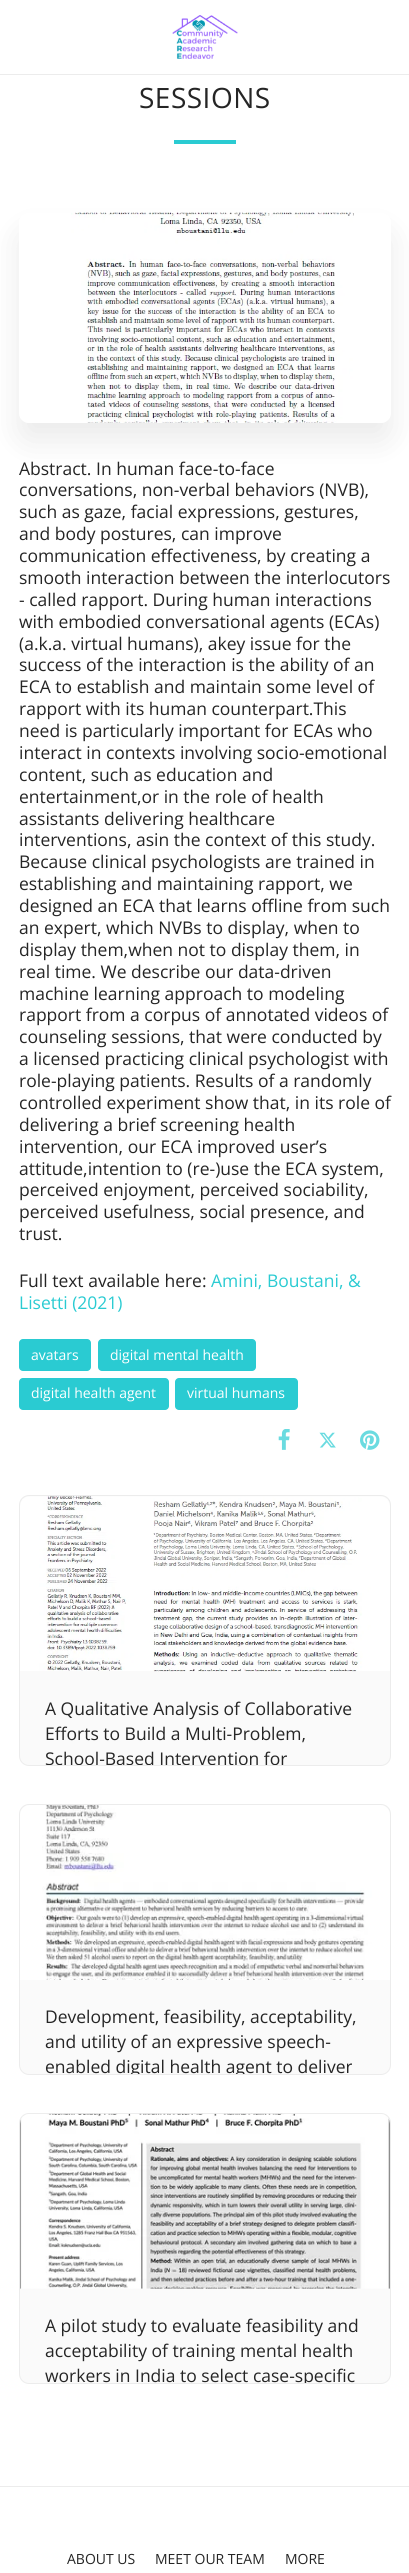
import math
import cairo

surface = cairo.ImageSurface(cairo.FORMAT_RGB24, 409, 2573)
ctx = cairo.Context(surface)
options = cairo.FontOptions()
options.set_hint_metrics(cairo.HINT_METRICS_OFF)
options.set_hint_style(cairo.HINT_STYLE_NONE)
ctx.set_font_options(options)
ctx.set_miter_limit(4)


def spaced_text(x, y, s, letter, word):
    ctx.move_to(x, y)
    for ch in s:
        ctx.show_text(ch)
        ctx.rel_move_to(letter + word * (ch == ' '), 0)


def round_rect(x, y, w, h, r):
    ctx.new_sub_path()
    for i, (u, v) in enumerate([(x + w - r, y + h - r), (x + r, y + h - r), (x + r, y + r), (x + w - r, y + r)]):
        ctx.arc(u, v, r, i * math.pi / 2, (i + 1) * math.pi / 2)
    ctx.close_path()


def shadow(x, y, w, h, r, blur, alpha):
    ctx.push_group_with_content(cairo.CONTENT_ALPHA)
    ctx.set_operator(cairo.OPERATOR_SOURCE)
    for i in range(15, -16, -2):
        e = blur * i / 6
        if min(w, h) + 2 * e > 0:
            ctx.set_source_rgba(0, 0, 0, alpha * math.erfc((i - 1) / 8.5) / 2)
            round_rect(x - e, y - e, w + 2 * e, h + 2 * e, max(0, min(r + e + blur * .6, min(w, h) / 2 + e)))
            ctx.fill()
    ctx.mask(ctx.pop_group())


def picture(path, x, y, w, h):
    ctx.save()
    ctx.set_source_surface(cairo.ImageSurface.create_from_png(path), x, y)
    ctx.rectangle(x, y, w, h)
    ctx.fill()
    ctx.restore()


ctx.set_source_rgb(1, 1, 1)
ctx.paint()
ctx.set_source_rgb(0.922, 0.922, 0.922)
ctx.rectangle(0, 74, 409, 1)
ctx.fill()
picture("img1.png", 172, 15, 66, 44)
ctx.select_font_face("Open Sans")
ctx.set_font_size(28)
ctx.set_source_rgb(0.145, 0.145, 0.145)
spaced_text(139, 108, "SESSIONS", 0.5, 0)
ctx.set_source_rgb(0.165, 0.796, 0.824)
ctx.rectangle(174, 140, 62, 4)
ctx.fill()
ctx.save()
ctx.set_fill_rule(cairo.FILL_RULE_EVEN_ODD)
ctx.new_path()
ctx.move_to(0, 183)
ctx.line_to(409, 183)
ctx.line_to(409, 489)
ctx.line_to(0, 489)
ctx.close_path()
ctx.move_to(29, 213)
ctx.line_to(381, 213)
ctx.curve_to(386.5, 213, 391, 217.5, 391, 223)
ctx.line_to(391, 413)
ctx.curve_to(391, 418.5, 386.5, 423, 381, 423)
ctx.line_to(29, 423)
ctx.curve_to(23.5, 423, 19, 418.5, 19, 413)
ctx.line_to(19, 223)
ctx.curve_to(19, 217.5, 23.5, 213, 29, 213)
ctx.close_path()
ctx.clip()
ctx.set_source_rgb(0, 0, 0)
shadow(19, 231, 372, 210, 10, 15.5, 0.08)
ctx.restore()
picture("img2.png", 71, 212, 283, 211)
ctx.set_font_size(17.5)
ctx.set_source_rgb(0.145, 0.145, 0.145)
ctx.move_to(19, 475)
ctx.show_text("Abstract. In human face-to-face")
ctx.move_to(19, 496)
ctx.show_text("conversations, non-verbal behaviors (NVB),")
ctx.move_to(19, 518)
ctx.show_text("such as gaze, facial expressions, gestures,")
ctx.move_to(19, 540)
ctx.show_text("and body postures, can improve")
ctx.move_to(19, 562)
ctx.show_text("communication effectiveness, by creating a")
ctx.move_to(19, 584)
ctx.show_text("smooth interaction between the interlocutors")
ctx.move_to(19, 606)
ctx.show_text("- called rapport. During human interactions")
ctx.move_to(19, 628)
ctx.show_text("with embodied conversational agents (ECAs)")
ctx.move_to(19, 650)
ctx.show_text("(a.k.a. virtual humans), akey issue for the")
ctx.move_to(19, 671)
ctx.show_text("success of the interaction is the ability of an")
ctx.move_to(19, 693)
ctx.show_text("ECA to establish and maintain some level of")
ctx.move_to(19, 715)
ctx.show_text("rapport with its human counterpart.This")
ctx.move_to(19, 737)
ctx.show_text("need is particularly important for ECAs who")
ctx.move_to(19, 759)
ctx.show_text("interact in contexts involving socio-emotional")
ctx.move_to(19, 781)
ctx.show_text("content, such as education and")
ctx.move_to(19, 803)
ctx.show_text("entertainment,or in the role of health")
ctx.move_to(19, 825)
ctx.show_text("assistants delivering healthcare")
ctx.move_to(19, 846)
ctx.show_text("interventions, asin the context of this study.")
ctx.move_to(19, 868)
ctx.show_text("Because clinical psychologists are trained in")
ctx.move_to(19, 890)
ctx.show_text("establishing and maintaining rapport, we")
ctx.move_to(19, 912)
ctx.show_text("designed an ECA that learns offline from such")
ctx.move_to(19, 934)
ctx.show_text("an expert, which NVBs to display, when to")
ctx.move_to(19, 956)
ctx.show_text("display them,when not to display them, in")
ctx.move_to(19, 978)
ctx.show_text("real time. We describe our data-driven")
ctx.move_to(19, 1000)
ctx.show_text("machine learning approach to modeling")
ctx.move_to(19, 1021)
ctx.show_text("rapport from a corpus of annotated videos of")
ctx.move_to(19, 1043)
ctx.show_text("counseling sessions, that were conducted by")
ctx.move_to(19, 1065)
ctx.show_text("a licensed practicing clinical psychologist with")
ctx.move_to(19, 1087)
ctx.show_text("role-playing patients. Results of a randomly")
ctx.move_to(19, 1109)
ctx.show_text("controlled experiment show that, in its role of")
ctx.move_to(19, 1131)
ctx.show_text("delivering a brief screening health")
ctx.move_to(19, 1153)
ctx.show_text("intervention, our ECA improved user’s")
ctx.move_to(19, 1175)
ctx.show_text("attitude,intention to (re-)use the ECA system,")
ctx.move_to(19, 1196)
ctx.show_text("perceived enjoyment, perceived sociability,")
ctx.move_to(19, 1218)
ctx.show_text("perceived usefulness, social presence, and")
ctx.move_to(19, 1240)
ctx.show_text("trust.")
ctx.move_to(19, 1287)
ctx.show_text("Full text available here:")
ctx.set_source_rgb(0.165, 0.796, 0.824)
ctx.move_to(211, 1287)
ctx.show_text("Amini, Boustani, &")
ctx.move_to(19, 1309)
ctx.show_text("Lisetti (2021)")
round_rect(19, 1339, 72, 32, 4)
ctx.fill()
ctx.set_font_size(14)
ctx.set_source_rgb(1, 1, 1)
ctx.move_to(31, 1360)
ctx.show_text("avatars")
ctx.set_source_rgb(0.165, 0.796, 0.824)
round_rect(98, 1339, 158, 32, 4)
ctx.fill()
ctx.set_source_rgb(1, 1, 1)
ctx.move_to(110, 1360)
ctx.show_text("digital mental health")
ctx.set_source_rgb(0.165, 0.796, 0.824)
round_rect(19, 1378, 150, 32, 4)
ctx.fill()
ctx.set_source_rgb(1, 1, 1)
ctx.move_to(31, 1398)
ctx.show_text("digital health agent")
ctx.set_source_rgb(0.165, 0.796, 0.824)
round_rect(175, 1378, 123, 32, 4)
ctx.fill()
ctx.set_source_rgb(1, 1, 1)
ctx.move_to(187, 1398)
ctx.show_text("virtual humans")
picture("img3.png", 278, 1429, 12, 21)
picture("img4.png", 319, 1432, 17, 16)
picture("img5.png", 360, 1430, 20, 20)
ctx.set_source_rgb(0.98, 0.98, 0.98)
round_rect(19.5, 1495.5, 371, 270, 9.5)
ctx.fill_preserve()
ctx.set_source_rgb(0.922, 0.922, 0.922)
ctx.set_line_width(1)
ctx.stroke()
picture("img6.png", 20, 1496, 370, 176)
ctx.set_font_size(17.5)
ctx.set_source_rgb(0.145, 0.145, 0.145)
ctx.move_to(45, 1715)
ctx.show_text("A Qualitative Analysis of Collaborative")
ctx.move_to(45, 1740)
ctx.show_text("Efforts to Build a Multi-Problem,")
ctx.save()
ctx.rectangle(20, 1671, 370, 94)
ctx.clip()
ctx.move_to(45, 1765)
ctx.show_text("School-Based Intervention for")
ctx.restore()
ctx.set_source_rgb(0.98, 0.98, 0.98)
round_rect(19.5, 1804.5, 371, 270, 9.5)
ctx.fill_preserve()
ctx.set_source_rgb(0.922, 0.922, 0.922)
ctx.stroke()
picture("img7.png", 20, 1805, 370, 175)
ctx.set_source_rgb(0.145, 0.145, 0.145)
ctx.move_to(45, 2023)
ctx.show_text("Development, feasibility, acceptability,")
ctx.move_to(45, 2048)
ctx.show_text("and utility of an expressive speech-")
ctx.save()
ctx.rectangle(20, 1980, 370, 94)
ctx.clip()
ctx.move_to(45, 2073)
ctx.show_text("enabled digital health agent to deliver")
ctx.restore()
ctx.set_source_rgb(0.98, 0.98, 0.98)
round_rect(19.5, 2113.5, 371, 270, 9.5)
ctx.fill_preserve()
ctx.set_source_rgb(0.922, 0.922, 0.922)
ctx.stroke()
picture("img8.png", 20, 2113, 370, 176)
ctx.set_source_rgb(0.145, 0.145, 0.145)
ctx.move_to(45, 2332)
ctx.show_text("A pilot study to evaluate feasibility and")
ctx.move_to(45, 2357)
ctx.show_text("acceptability of training mental health")
ctx.save()
ctx.rectangle(20, 2289, 370, 94)
ctx.clip()
ctx.move_to(45, 2382)
ctx.show_text("workers in India to select case-specific")
ctx.restore()
ctx.set_source_rgb(0.922, 0.922, 0.922)
ctx.rectangle(0, 2486, 409, 1)
ctx.fill()
ctx.set_font_size(14)
ctx.set_source_rgb(0.145, 0.145, 0.145)
ctx.move_to(67, 2564)
ctx.show_text("ABOUT US")
ctx.move_to(155, 2564)
ctx.show_text("MEET OUR TEAM")
ctx.move_to(285, 2564)
ctx.show_text("MORE")
surface.write_to_png("page.png")
